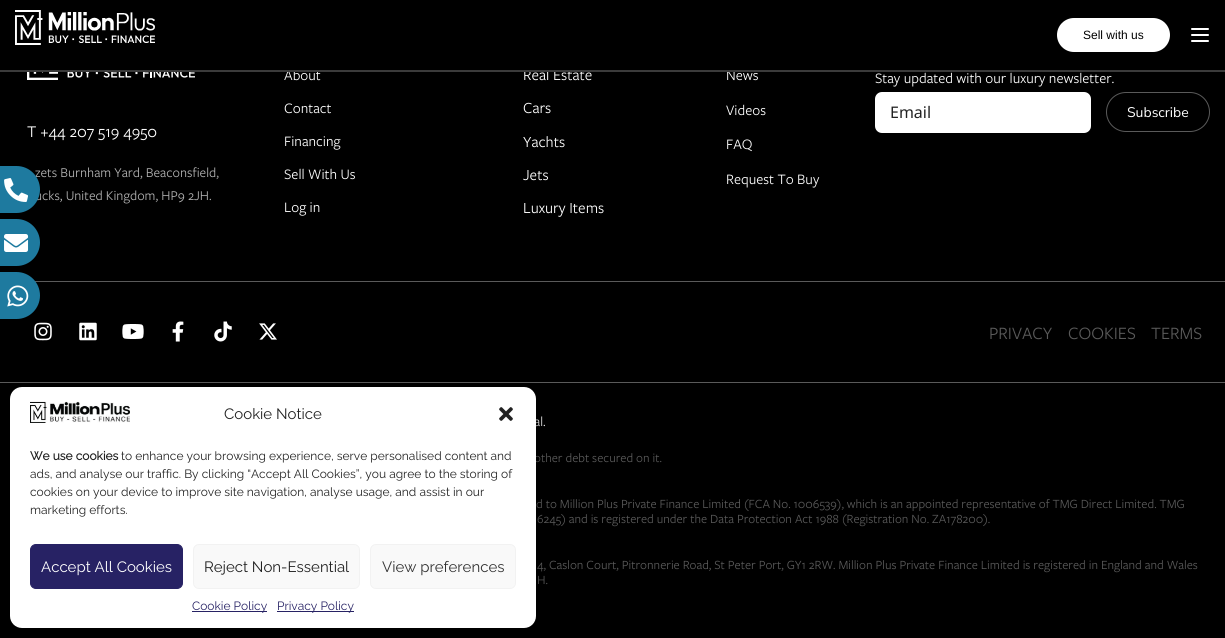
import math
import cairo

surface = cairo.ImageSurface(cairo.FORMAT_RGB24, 1225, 638)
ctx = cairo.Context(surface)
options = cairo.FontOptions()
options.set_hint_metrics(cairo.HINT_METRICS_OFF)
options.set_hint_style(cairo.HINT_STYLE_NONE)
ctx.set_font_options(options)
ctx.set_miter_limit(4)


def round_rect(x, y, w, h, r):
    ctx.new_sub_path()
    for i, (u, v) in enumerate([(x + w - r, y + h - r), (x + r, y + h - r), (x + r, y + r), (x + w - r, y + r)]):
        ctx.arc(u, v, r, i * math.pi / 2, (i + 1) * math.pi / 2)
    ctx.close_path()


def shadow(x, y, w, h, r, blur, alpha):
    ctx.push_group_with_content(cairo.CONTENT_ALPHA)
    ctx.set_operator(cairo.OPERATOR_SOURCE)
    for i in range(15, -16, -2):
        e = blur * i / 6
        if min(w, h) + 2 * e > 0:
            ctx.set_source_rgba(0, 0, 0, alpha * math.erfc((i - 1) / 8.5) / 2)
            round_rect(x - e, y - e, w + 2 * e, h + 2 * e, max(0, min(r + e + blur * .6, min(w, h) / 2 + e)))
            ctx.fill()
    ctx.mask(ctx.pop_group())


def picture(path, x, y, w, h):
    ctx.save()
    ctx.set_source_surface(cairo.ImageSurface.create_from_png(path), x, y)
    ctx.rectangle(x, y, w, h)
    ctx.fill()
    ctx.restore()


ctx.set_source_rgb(0, 0, 0)
ctx.paint()
ctx.select_font_face("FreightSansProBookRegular")
ctx.set_font_size(15)
ctx.set_source_rgb(1, 1, 1)
ctx.move_to(284, 80)
ctx.show_text("About")
ctx.set_font_size(16)
ctx.move_to(523, 80)
ctx.show_text("Real Estate")
ctx.set_source_rgb(0, 0, 0)
ctx.rectangle(293, 69, 256, 1)
ctx.fill()
ctx.set_font_size(15)
ctx.set_source_rgb(1, 1, 1)
ctx.move_to(726, 80)
ctx.show_text("News")
ctx.set_source_rgb(0.231, 0.231, 0.231)
ctx.rectangle(0, 70, 1225, 2)
ctx.fill()
picture("img1.png", 15, 10, 140, 35)
ctx.set_source_rgb(1, 1, 1)
round_rect(1057, 18, 113, 34, 17)
ctx.fill()
ctx.select_font_face("Liberation Sans")
ctx.set_font_size(12)
ctx.set_source_rgb(0, 0, 0)
ctx.move_to(1083, 39)
ctx.show_text("Sell with us")
ctx.set_source_rgb(1, 1, 1)
round_rect(1191, 40, 18, 2, 1)
ctx.fill()
round_rect(1191, 34, 18, 2, 1)
ctx.fill()
round_rect(1191, 28, 18, 2, 1)
ctx.fill()
ctx.set_source_rgb(0, 0, 0)
shadow(-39, 170, 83, 47, 23.5, 5, 0.15)
ctx.select_font_face("FreightSansProBookRegular")
ctx.set_font_size(14)
ctx.set_source_rgb(0.702, 0.702, 0.702)
ctx.move_to(35, 177)
ctx.show_text("zets Burnham Yard, Beaconsfield,")
ctx.move_to(35, 200)
ctx.show_text("ucks, United Kingdom, HP9 2JH.")
ctx.set_source_rgb(0.118, 0.478, 0.624)
ctx.new_path()
ctx.move_to(-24, 166)
ctx.line_to(16.5, 166)
ctx.curve_to(29.5, 166, 40, 176.5, 40, 189.5)
ctx.curve_to(40, 202.5, 29.5, 213, 16.5, 213)
ctx.line_to(-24, 213)
ctx.close_path()
ctx.fill()
picture("img2.png", 4, 178, 24, 24)
ctx.new_path()
ctx.move_to(-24, 219)
ctx.line_to(16.5, 219)
ctx.curve_to(29.5, 219, 40, 229.5, 40, 242.5)
ctx.curve_to(40, 255.5, 29.5, 266, 16.5, 266)
ctx.line_to(-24, 266)
ctx.close_path()
ctx.fill()
picture("img3.png", 4, 234, 25, 18)
ctx.set_source_rgb(0.353, 0.353, 0.353)
ctx.rectangle(35, 281, 1190, 1)
ctx.fill()
ctx.set_source_rgb(0.118, 0.478, 0.624)
ctx.new_path()
ctx.move_to(-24, 272)
ctx.line_to(16.5, 272)
ctx.curve_to(29.5, 272, 40, 282.5, 40, 295.5)
ctx.curve_to(40, 308.5, 29.5, 319, 16.5, 319)
ctx.line_to(-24, 319)
ctx.close_path()
ctx.fill()
picture("img4.png", 7, 285, 22, 22)
ctx.set_font_size(15)
ctx.set_source_rgb(1, 1, 1)
ctx.move_to(284, 113)
ctx.show_text("Contact")
ctx.move_to(284, 146)
ctx.show_text("Financing")
ctx.move_to(284, 179)
ctx.show_text("Sell With Us")
ctx.move_to(284, 212)
ctx.show_text("Log in")
ctx.set_font_size(16)
ctx.move_to(523, 113)
ctx.show_text("Cars")
ctx.move_to(523, 147)
ctx.show_text("Yachts")
ctx.move_to(523, 180)
ctx.show_text("Jets")
ctx.move_to(523, 213)
ctx.show_text("Luxury Items")
ctx.set_font_size(15)
ctx.move_to(726, 115)
ctx.show_text("Videos")
ctx.move_to(726, 149)
ctx.show_text("FAQ")
ctx.move_to(726, 184)
ctx.show_text("Request To Buy")
ctx.move_to(875, 83)
ctx.show_text("Stay updated with our luxury newsletter.")
round_rect(875, 92, 216, 41, 7)
ctx.fill()
ctx.select_font_face("Noto Sans")
ctx.set_font_size(16)
ctx.set_source_rgb(0.133, 0.133, 0.133)
ctx.move_to(890, 118)
ctx.show_text("Email")
round_rect(1106.5, 92.5, 103, 39, 19.5)
ctx.set_source_rgb(0.353, 0.353, 0.353)
ctx.set_line_width(1)
ctx.stroke()
ctx.select_font_face("Nunito Sans")
ctx.set_font_size(14)
ctx.set_source_rgb(1, 1, 1)
ctx.move_to(1127, 117)
ctx.show_text("Subscribe")
picture("img5.png", 27, 72, 168, 8)
ctx.select_font_face("FreightSansProBookRegular")
ctx.set_font_size(17)
ctx.move_to(27, 137)
ctx.show_text("T +44 207 519 4950")
ctx.set_source_rgb(0.353, 0.353, 0.353)
ctx.rectangle(0, 382, 1225, 1)
ctx.fill()
picture("img6.png", 34, 322, 18, 19)
picture("img7.png", 79, 322, 18, 19)
picture("img8.png", 122, 324, 22, 15)
picture("img9.png", 172, 321, 12, 21)
picture("img10.png", 214, 321, 18, 21)
picture("img11.png", 259, 323, 18, 17)
ctx.set_font_size(18)
ctx.move_to(989, 339)
ctx.show_text("PRIVACY")
ctx.move_to(1068, 339)
ctx.show_text("COOKIES")
ctx.move_to(1151, 339)
ctx.show_text("TERMS")
ctx.set_font_size(14)
ctx.set_source_rgb(0.949, 0.949, 0.949)
ctx.move_to(534, 426)
ctx.show_text("al.")
ctx.set_font_size(13)
ctx.set_source_rgb(0.353, 0.353, 0.353)
ctx.move_to(534, 462)
ctx.show_text("other debt secured on it.")
ctx.move_to(536, 508)
ctx.show_text("d to Million Plus Private Finance Limited (FCA No. 1006539), which is an appointed representative of TMG Direct Limited. TMG")
ctx.move_to(537, 523)
ctx.show_text("6245) and is registered under the Data Protection Act 1988 (Registration No. ZA178200).")
ctx.move_to(537, 569)
ctx.show_text("4, Caslon Court, Pitronnerie Road, St Peter Port, GY1 2RW. Million Plus Private Finance Limited is registered in England and Wales")
ctx.move_to(537, 584)
ctx.show_text("H.")
ctx.set_source_rgb(0, 0, 0)
shadow(10, 393, 526, 241, 12, 3, 0.23)
shadow(10, 397, 526, 241, 12, 10, 0.19)
ctx.set_source_rgb(1, 1, 1)
round_rect(10, 387, 526, 241, 12)
ctx.fill()
picture("img12.png", 30, 401, 100, 22)
ctx.select_font_face("Raleway")
ctx.set_font_size(15)
ctx.set_source_rgb(0.133, 0.133, 0.133)
ctx.move_to(224, 419)
ctx.show_text("Cookie Notice")
picture("img13.png", 499, 407, 14, 14)
ctx.select_font_face("Raleway", cairo.FONT_SLANT_NORMAL, cairo.FONT_WEIGHT_BOLD)
ctx.set_font_size(12)
ctx.move_to(30, 460)
ctx.show_text("We use cookies")
ctx.select_font_face("Raleway")
ctx.move_to(121, 460)
ctx.show_text("to enhance your browsing experience, serve personalised content and")
ctx.move_to(30, 478)
ctx.show_text("ads, and analyse our traffic. By clicking “Accept All Cookies”, you agree to the storing of")
ctx.move_to(30, 496)
ctx.show_text("cookies on your device to improve site navigation, analyse usage, and assist in our")
ctx.move_to(30, 514)
ctx.show_text("marketing efforts.")
ctx.set_source_rgb(0.153, 0.133, 0.392)
round_rect(30.5, 544.5, 152, 44, 5.5)
ctx.fill_preserve()
ctx.stroke()
ctx.set_font_size(15)
ctx.set_source_rgb(1, 1, 1)
ctx.move_to(41, 572)
ctx.show_text("Accept All Cookies")
ctx.set_source_rgb(0.976, 0.976, 0.976)
round_rect(193.5, 544.5, 166, 44, 5.5)
ctx.fill_preserve()
ctx.set_source_rgb(0.949, 0.949, 0.949)
ctx.stroke()
ctx.set_source_rgb(0.133, 0.133, 0.133)
ctx.move_to(204, 572)
ctx.show_text("Reject Non-Essential")
ctx.set_source_rgb(0.976, 0.976, 0.976)
round_rect(370.5, 544.5, 145, 44, 5.5)
ctx.fill_preserve()
ctx.set_source_rgb(0.949, 0.949, 0.949)
ctx.stroke()
ctx.set_source_rgb(0.2, 0.2, 0.2)
ctx.move_to(382, 572)
ctx.show_text("View preferences")
ctx.set_source_rgb(0.153, 0.133, 0.392)
ctx.rectangle(192, 611, 75, 1)
ctx.fill()
ctx.set_font_size(12)
ctx.move_to(192, 610)
ctx.show_text("Cookie Policy")
ctx.rectangle(277, 611, 77, 1)
ctx.fill()
ctx.move_to(277, 610)
ctx.show_text("Privacy Policy")
surface.write_to_png("page.png")
